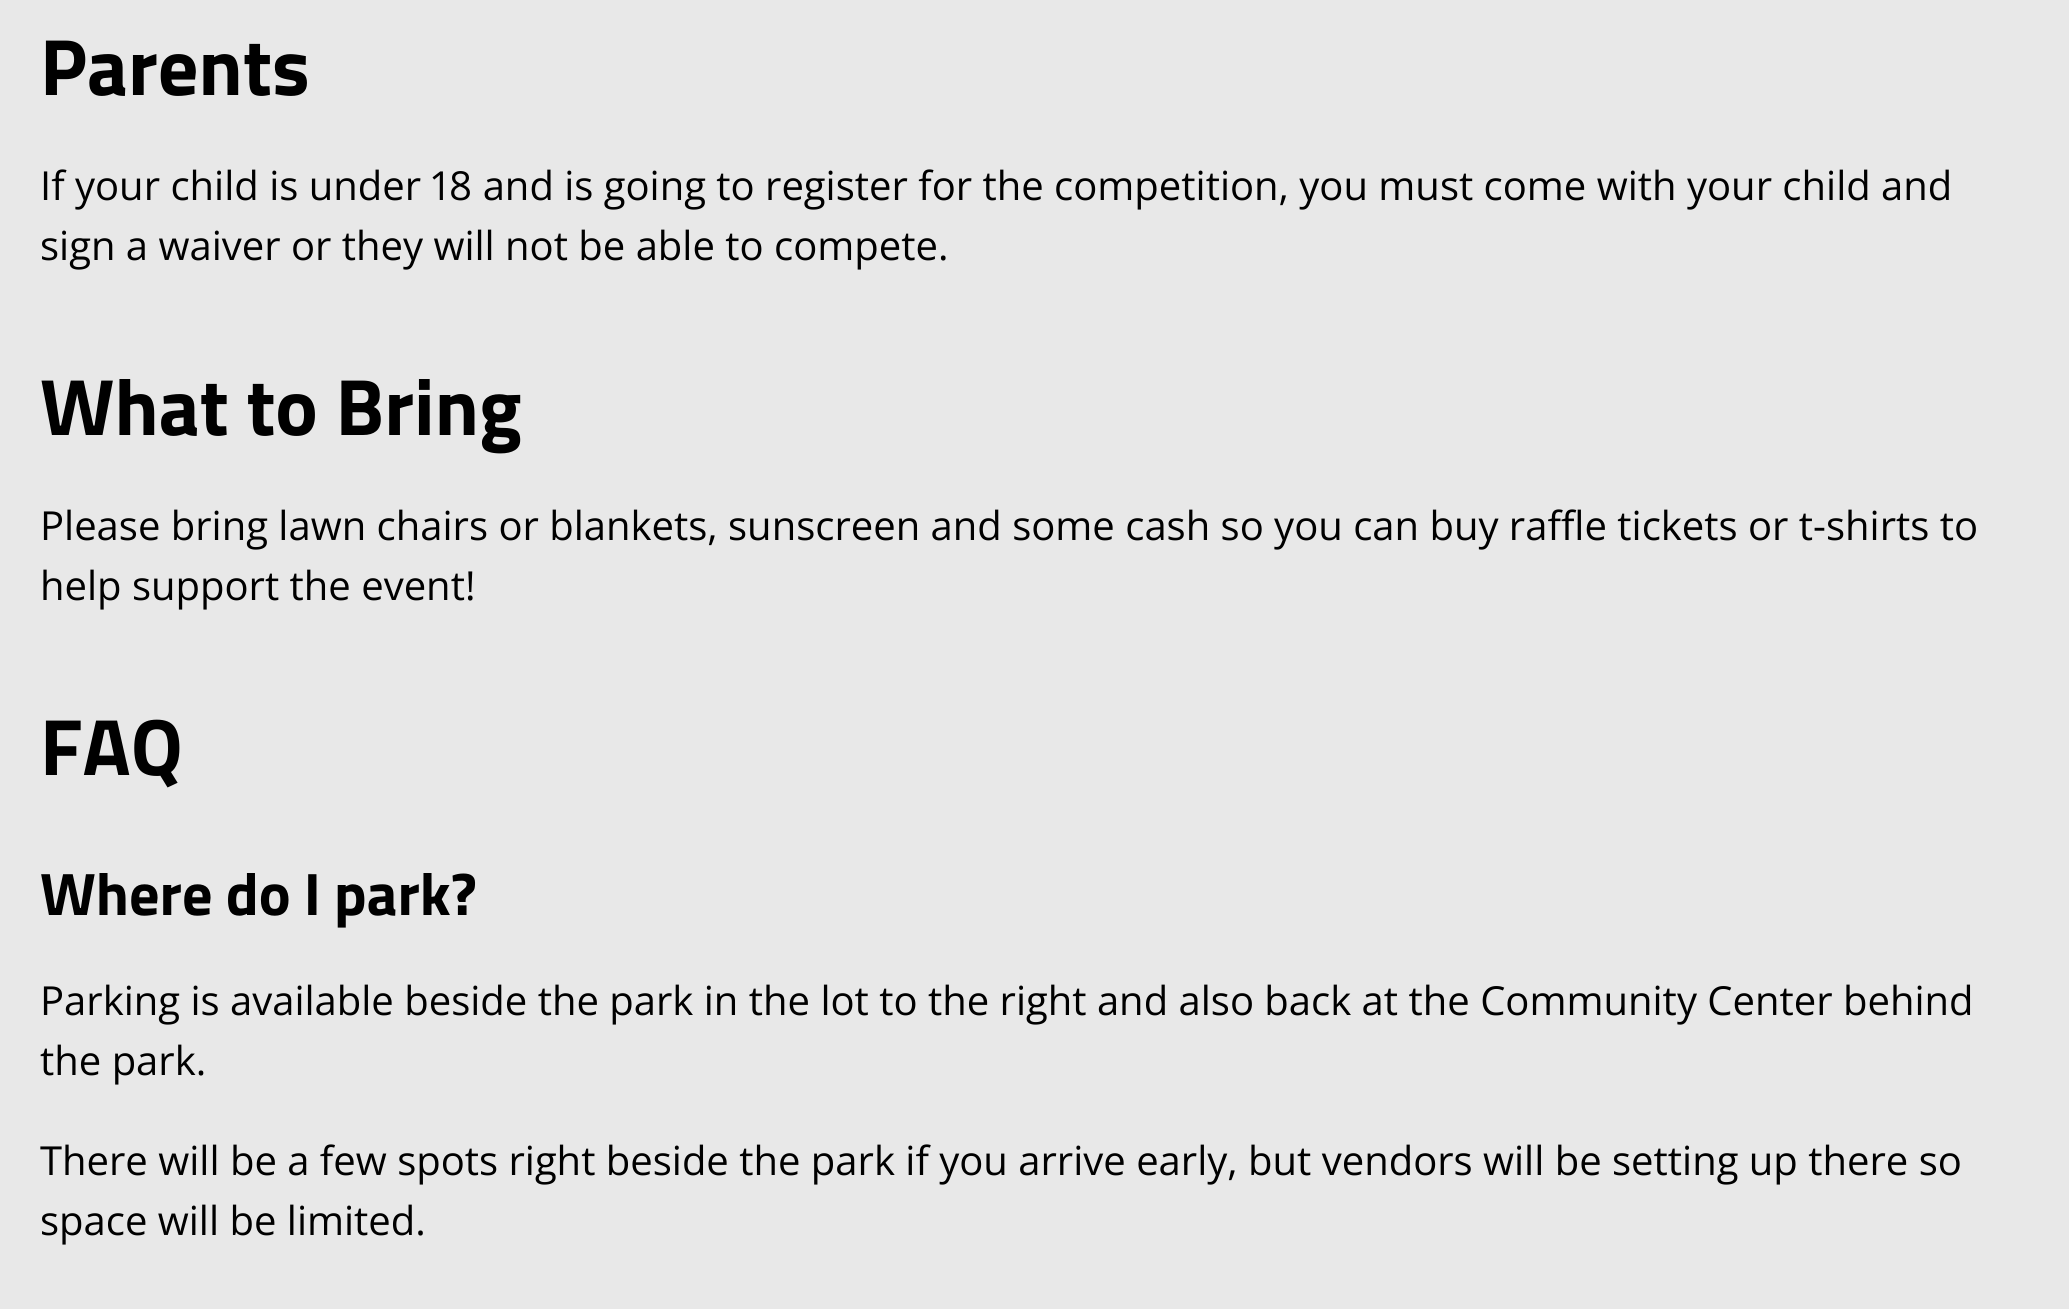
import math
import cairo

surface = cairo.ImageSurface(cairo.FORMAT_RGB24, 2069, 1309)
ctx = cairo.Context(surface)
options = cairo.FontOptions()
options.set_hint_metrics(cairo.HINT_METRICS_OFF)
options.set_hint_style(cairo.HINT_STYLE_NONE)
ctx.set_font_options(options)
ctx.set_miter_limit(4)


ctx.set_source_rgb(0.91, 0.91, 0.91)
ctx.paint()
ctx.select_font_face("Titillium Web", cairo.FONT_SLANT_NORMAL, cairo.FONT_WEIGHT_BOLD)
ctx.set_font_size(80)
ctx.set_source_rgb(0, 0, 0)
ctx.move_to(40, 95)
ctx.show_text("Parents")
ctx.select_font_face("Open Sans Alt")
ctx.set_font_size(40)
ctx.move_to(40, 200)
ctx.show_text("If your child is under 18 and is going to register for the competition, you must come with your child and")
ctx.select_font_face("Open Sans")
ctx.move_to(40, 260)
ctx.show_text("sign a waiver or they will not be able to compete.")
ctx.select_font_face("Titillium Web", cairo.FONT_SLANT_NORMAL, cairo.FONT_WEIGHT_BOLD)
ctx.set_font_size(80)
ctx.move_to(40, 435)
ctx.show_text("What to Bring")
ctx.select_font_face("Open Sans")
ctx.set_font_size(40)
ctx.move_to(40, 540)
ctx.show_text("Please bring lawn chairs or blankets, sunscreen and some cash so you can buy raffle tickets or t-shirts to")
ctx.move_to(40, 600)
ctx.show_text("help support the event!")
ctx.select_font_face("Titillium Web", cairo.FONT_SLANT_NORMAL, cairo.FONT_WEIGHT_BOLD)
ctx.set_font_size(80)
ctx.move_to(40, 775)
ctx.show_text("FAQ")
ctx.set_font_size(60)
ctx.move_to(40, 915)
ctx.show_text("Where do I park?")
ctx.select_font_face("Open Sans")
ctx.set_font_size(40)
ctx.move_to(40, 1015)
ctx.show_text("Parking is available beside the park in the lot to the right and also back at the Community Center behind")
ctx.move_to(40, 1075)
ctx.show_text("the park.")
ctx.move_to(40, 1175)
ctx.show_text("There will be a few spots right beside the park if you arrive early, but vendors will be setting up there so")
ctx.move_to(40, 1235)
ctx.show_text("space will be limited.")
surface.write_to_png("page.png")
